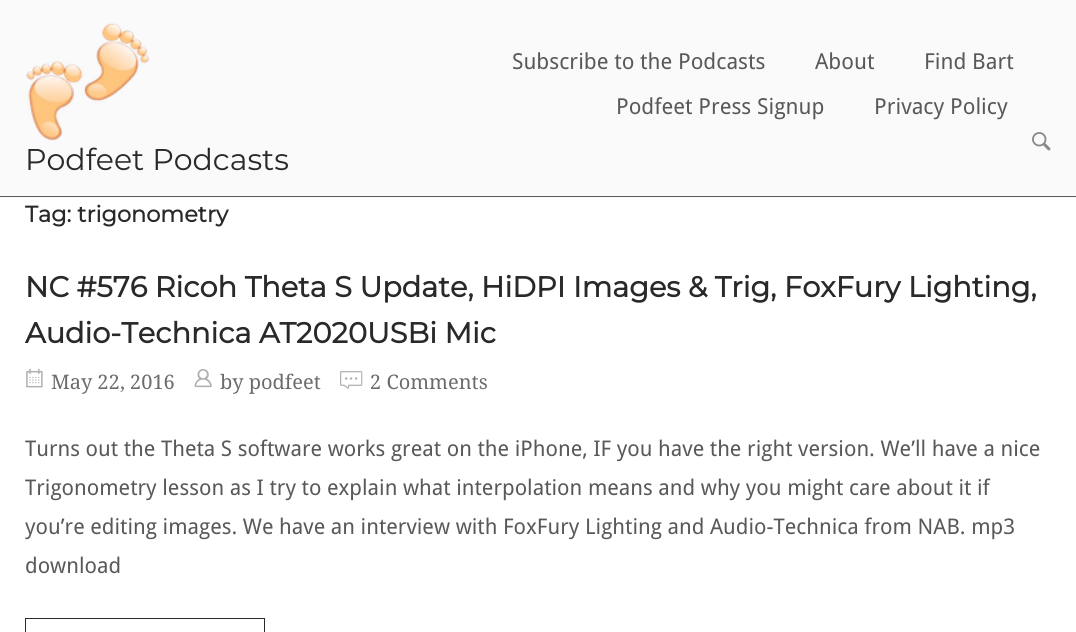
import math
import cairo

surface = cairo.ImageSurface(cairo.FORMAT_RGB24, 1076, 632)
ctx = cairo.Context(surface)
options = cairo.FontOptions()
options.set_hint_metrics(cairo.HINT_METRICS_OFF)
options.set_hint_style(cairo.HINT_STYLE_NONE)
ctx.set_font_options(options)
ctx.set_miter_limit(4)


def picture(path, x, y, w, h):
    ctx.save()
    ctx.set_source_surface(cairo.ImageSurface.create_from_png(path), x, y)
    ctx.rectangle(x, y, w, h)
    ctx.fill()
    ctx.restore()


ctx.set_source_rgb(1, 1, 1)
ctx.paint()
ctx.set_source_rgb(0.98, 0.98, 0.98)
ctx.rectangle(0, 0, 1076, 198)
ctx.fill()
ctx.set_source_rgb(0.349, 0.349, 0.349)
ctx.rectangle(0, 196, 1076, 1)
ctx.fill()
ctx.select_font_face("Droid Sans")
ctx.set_font_size(22)
ctx.move_to(512, 69)
ctx.show_text("Subscribe to the Podcasts")
ctx.move_to(815, 69)
ctx.show_text("About")
ctx.move_to(924, 69)
ctx.show_text("Find Bart")
ctx.move_to(616, 114)
ctx.show_text("Podfeet Press Signup")
ctx.move_to(874, 114)
ctx.show_text("Privacy Policy")
picture("img1.png", 1032, 132, 19, 19)
picture("img2.png", 26, 22, 123, 119)
ctx.select_font_face("Montserrat Thin")
ctx.set_font_size(30)
ctx.set_source_rgb(0.161, 0.161, 0.161)
ctx.move_to(25, 170)
ctx.show_text("Podfeet Podcasts")
ctx.select_font_face("Montserrat", cairo.FONT_SLANT_NORMAL, cairo.FONT_WEIGHT_BOLD)
ctx.set_font_size(22.5)
ctx.move_to(25, 222)
ctx.show_text("Tag: trigonometry")
ctx.set_font_size(28.8)
ctx.move_to(25, 297)
ctx.show_text("NC #576 Ricoh Theta S Update, HiDPI Images & Trig, FoxFury Lighting,")
ctx.move_to(25, 343)
ctx.show_text("Audio-Technica AT2020USBi Mic")
picture("img3.png", 26, 368, 17, 20)
ctx.select_font_face("Droid Serif")
ctx.set_font_size(20)
ctx.set_source_rgb(0.42, 0.42, 0.42)
ctx.move_to(51, 389)
ctx.show_text("May 22, 2016")
picture("img4.png", 194, 369, 18, 19)
ctx.move_to(220, 389)
ctx.show_text("by podfeet")
picture("img5.png", 340, 371, 23, 18)
ctx.move_to(370, 389)
ctx.show_text("2 Comments")
ctx.select_font_face("Droid Sans")
ctx.set_font_size(21.6)
ctx.set_source_rgb(0.349, 0.349, 0.349)
ctx.move_to(25, 456)
ctx.show_text("Turns out the Theta S software works great on the iPhone, IF you have the right version. We’ll have a nice")
ctx.move_to(25, 495)
ctx.show_text("Trigonometry lesson as I try to explain what interpolation means and why you might care about it if")
ctx.move_to(25, 534)
ctx.show_text("you’re editing images. We have an interview with FoxFury Lighting and Audio-Technica from NAB. mp3")
ctx.move_to(25, 573)
ctx.show_text("download")
ctx.rectangle(25.5, 618.5, 239, 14)
ctx.set_source_rgb(0.161, 0.161, 0.161)
ctx.set_line_width(1)
ctx.stroke()
surface.write_to_png("page.png")
